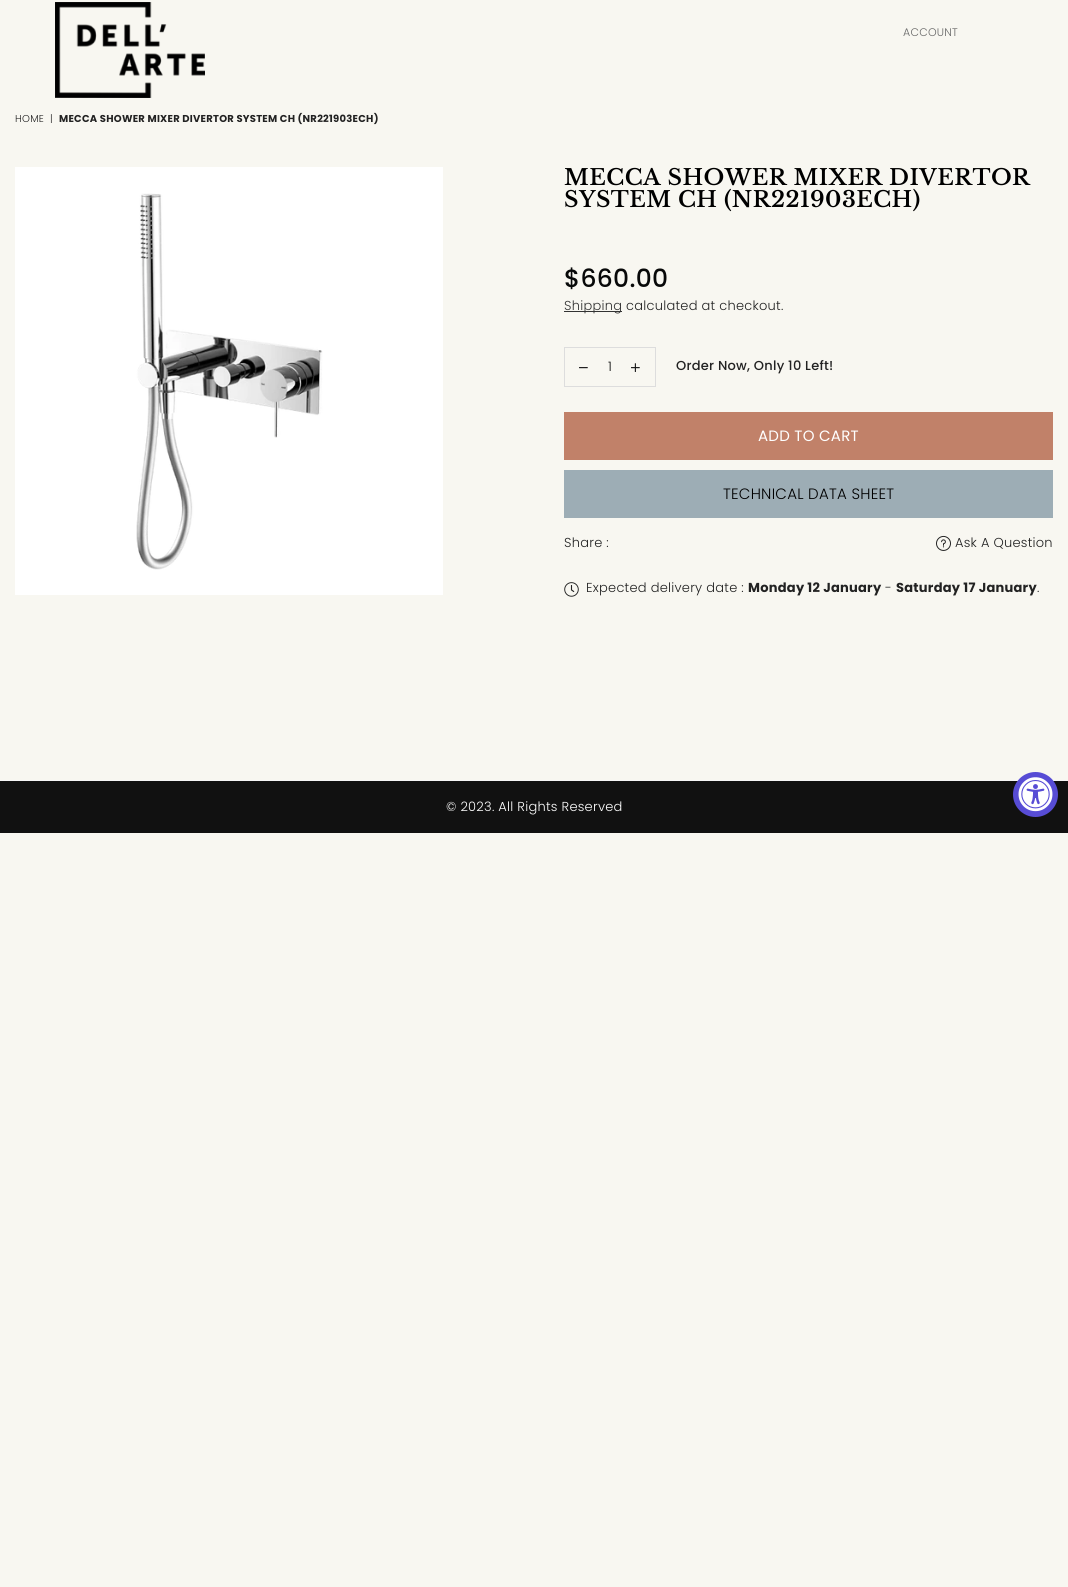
import math
import cairo

surface = cairo.ImageSurface(cairo.FORMAT_RGB24, 1068, 1587)
ctx = cairo.Context(surface)
options = cairo.FontOptions()
options.set_hint_metrics(cairo.HINT_METRICS_OFF)
options.set_hint_style(cairo.HINT_STYLE_NONE)
ctx.set_font_options(options)
ctx.set_miter_limit(4)


def spaced_text(x, y, s, letter, word):
    ctx.move_to(x, y)
    for ch in s:
        ctx.show_text(ch)
        ctx.rel_move_to(letter + word * (ch == ' '), 0)


def picture(path, x, y, w, h):
    ctx.save()
    ctx.set_source_surface(cairo.ImageSurface.create_from_png(path), x, y)
    ctx.rectangle(x, y, w, h)
    ctx.fill()
    ctx.restore()


ctx.set_source_rgb(0.969, 0.965, 0.945)
ctx.paint()
picture("img1.png", 55, 2, 150, 96)
ctx.select_font_face("Poppins Light")
ctx.set_font_size(11)
ctx.set_source_rgb(0.4, 0.4, 0.4)
spaced_text(903, 36, "ACCOUNT", 0.25, 0)
ctx.set_font_size(10)
ctx.set_source_rgb(0.133, 0.133, 0.133)
spaced_text(15, 122, "HOME", 0.25, 0)
spaced_text(50, 122, "|", 0.25, 0)
ctx.select_font_face("Poppins", cairo.FONT_SLANT_NORMAL, cairo.FONT_WEIGHT_BOLD)
spaced_text(59, 122, "MECCA SHOWER MIXER DIVERTOR SYSTEM CH (NR221903ECH)", 0.25, 0)
ctx.set_source_rgb(1, 1, 1)
ctx.rectangle(15, 167, 428, 428)
ctx.fill()
picture("img2.png", 136, 193, 187, 377)
ctx.select_font_face("Libre Baskerville SemiBold")
ctx.set_font_size(22)
ctx.set_source_rgb(0, 0, 0)
spaced_text(564, 185, "MECCA SHOWER MIXER DIVERTOR", 0.45, 0)
spaced_text(564, 207, "SYSTEM CH (NR221903ECH)", 0.45, 0)
ctx.select_font_face("Poppins Medium")
ctx.set_font_size(25)
ctx.set_source_rgb(0.035, 0.039, 0.039)
spaced_text(564, 287, "$660.00", 0.25, 0)
ctx.set_source_rgb(0.2, 0.2, 0.2)
ctx.rectangle(564, 311, 58, 1)
ctx.fill()
ctx.select_font_face("Poppins Light")
ctx.set_font_size(13)
spaced_text(564, 310, "Shipping", 0.25, 0)
ctx.set_source_rgb(0.133, 0.133, 0.133)
spaced_text(626, 310, "calculated at checkout.", 0.25, 0)
ctx.rectangle(564.5, 347.5, 91, 39)
ctx.set_source_rgb(0.867, 0.867, 0.867)
ctx.set_line_width(1)
ctx.stroke()
picture("img3.png", 579, 367, 9, 2)
ctx.set_source_rgb(0.067, 0.067, 0.067)
ctx.move_to(608, 371)
ctx.show_text("1")
picture("img4.png", 631, 363, 9, 9)
ctx.select_font_face("Poppins Medium")
ctx.set_source_rgb(0.133, 0.133, 0.133)
spaced_text(676, 370, "Order Now, Only 10 Left!", 0.25, 0)
ctx.set_source_rgb(0.757, 0.506, 0.412)
ctx.rectangle(564, 412, 489, 48)
ctx.fill()
ctx.select_font_face("Poppins")
ctx.set_font_size(15)
ctx.set_source_rgb(1, 1, 1)
spaced_text(758, 441, "ADD TO CART", 0.25, 0)
ctx.set_source_rgb(0.616, 0.678, 0.71)
ctx.rectangle(564, 470, 489, 48)
ctx.fill()
ctx.select_font_face("Poppins Light")
ctx.set_source_rgb(0, 0, 0)
spaced_text(723, 499, "TECHNICAL DATA SHEET", 0.25, 0)
ctx.set_font_size(13)
ctx.set_source_rgb(0.133, 0.133, 0.133)
spaced_text(564, 547, "Share :", 0.25, 0)
picture("img5.png", 936, 535, 15, 16)
spaced_text(955, 547, "Ask A Question", 0.25, 0)
picture("img6.png", 564, 582, 15, 15)
spaced_text(586, 592, "Expected delivery date :", 0.25, 0)
ctx.select_font_face("Poppins", cairo.FONT_SLANT_NORMAL, cairo.FONT_WEIGHT_BOLD)
spaced_text(748, 592, "Monday 12 January", 0.25, 0)
ctx.select_font_face("Poppins Light")
spaced_text(885, 592, "-", 0.25, 0)
ctx.select_font_face("Poppins", cairo.FONT_SLANT_NORMAL, cairo.FONT_WEIGHT_BOLD)
spaced_text(896, 592, "Saturday 17 January", 0.25, 0)
ctx.select_font_face("Poppins Light")
spaced_text(1037, 592, ".", 0.25, 0)
ctx.set_source_rgb(0.961, 0.961, 0.961)
ctx.rectangle(0, 780, 1068, 1)
ctx.fill()
ctx.set_source_rgb(0.067, 0.067, 0.067)
ctx.rectangle(0, 781, 1068, 52)
ctx.fill()
ctx.set_source_rgb(1, 1, 1)
spaced_text(446, 811, "© 2023. All Rights Reserved", 0.25, 0)
ctx.set_source_rgb(0.341, 0.298, 0.835)
ctx.new_path()
ctx.arc(1035.5, 794.5, 22.5, 0, 2 * math.pi)
ctx.fill()
picture("img7.png", 1018, 777, 35, 35)
surface.write_to_png("page.png")
